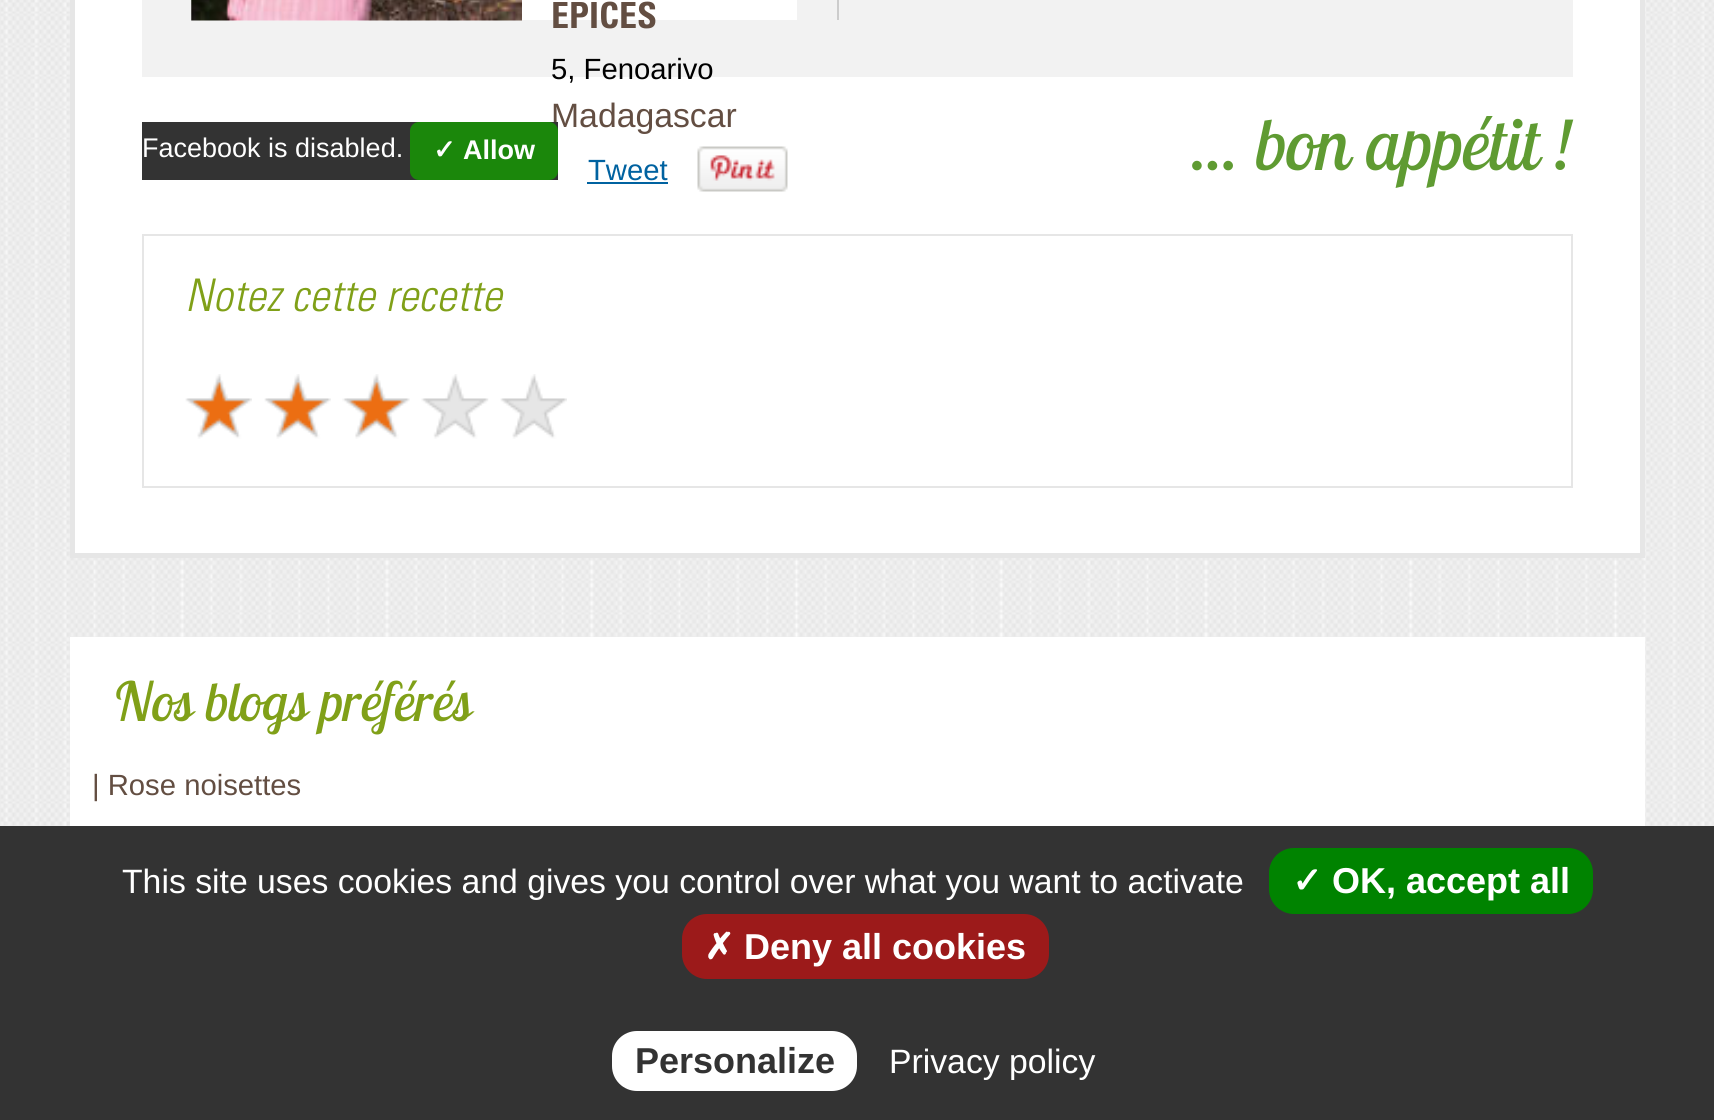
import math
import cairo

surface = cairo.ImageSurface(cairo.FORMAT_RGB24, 1714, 1120)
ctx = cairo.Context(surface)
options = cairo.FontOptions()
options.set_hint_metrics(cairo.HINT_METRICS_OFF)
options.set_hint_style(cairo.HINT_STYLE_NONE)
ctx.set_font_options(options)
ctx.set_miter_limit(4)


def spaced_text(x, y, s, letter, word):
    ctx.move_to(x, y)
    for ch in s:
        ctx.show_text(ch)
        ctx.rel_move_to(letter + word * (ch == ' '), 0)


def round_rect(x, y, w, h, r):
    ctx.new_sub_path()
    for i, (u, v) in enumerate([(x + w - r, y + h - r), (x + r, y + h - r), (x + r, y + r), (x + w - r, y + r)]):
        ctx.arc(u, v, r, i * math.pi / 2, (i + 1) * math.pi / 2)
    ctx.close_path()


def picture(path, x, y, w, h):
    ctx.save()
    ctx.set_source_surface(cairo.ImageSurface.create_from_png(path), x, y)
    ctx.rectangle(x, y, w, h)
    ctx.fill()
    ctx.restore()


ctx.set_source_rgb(1, 1, 1)
ctx.paint()
picture("img1.png", 0, 0, 1714, 826)
ctx.set_source_rgb(1, 1, 1)
ctx.rectangle(72.5, -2.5, 1570, 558)
ctx.fill_preserve()
ctx.set_source_rgb(0.902, 0.902, 0.902)
ctx.set_line_width(5)
ctx.stroke()
ctx.set_source_rgb(0.949, 0.949, 0.949)
ctx.rectangle(142, 0, 1431, 77)
ctx.fill()
ctx.set_source_rgb(0.8, 0.8, 0.8)
ctx.rectangle(837, 0, 2, 20)
ctx.fill()
picture("img2.png", 191, 0, 331, 21)
ctx.set_source_rgb(1, 1, 1)
ctx.rectangle(522, 0, 275, 20)
ctx.fill()
ctx.select_font_face("Univers", cairo.FONT_SLANT_NORMAL, cairo.FONT_WEIGHT_BOLD)
ctx.set_font_size(36)
ctx.set_source_rgb(0.388, 0.306, 0.259)
ctx.move_to(551, 28)
ctx.show_text("ÉPICES")
ctx.select_font_face("Liberation Sans")
ctx.set_font_size(29.25)
ctx.set_source_rgb(0, 0, 0)
ctx.move_to(551, 79)
ctx.show_text("5, Fenoarivo")
ctx.set_font_size(33.75)
ctx.set_source_rgb(0.388, 0.306, 0.259)
ctx.move_to(551, 127)
ctx.show_text("Madagascar")
ctx.set_source_rgb(0.2, 0.2, 0.2)
ctx.rectangle(142, 122, 416, 58)
ctx.fill()
ctx.set_font_size(27)
ctx.set_source_rgb(1, 1, 1)
ctx.move_to(142, 157)
ctx.show_text("Facebook is disabled.")
ctx.set_source_rgb(0.106, 0.529, 0.043)
round_rect(410, 122, 148, 58, 9)
ctx.fill()
ctx.select_font_face("DejaVu Sans", cairo.FONT_SLANT_NORMAL, cairo.FONT_WEIGHT_BOLD)
ctx.set_source_rgb(1, 1, 1)
ctx.move_to(433, 159)
ctx.show_text("✓")
ctx.select_font_face("Liberation Sans", cairo.FONT_SLANT_NORMAL, cairo.FONT_WEIGHT_BOLD)
ctx.move_to(463, 159)
ctx.show_text("Allow")
ctx.select_font_face("Liberation Sans")
ctx.set_font_size(29.25)
ctx.set_source_rgb(0, 0.384, 0.627)
ctx.move_to(588, 180)
ctx.show_text("Tweet")
ctx.rectangle(587, 182, 81, 2)
ctx.fill()
picture("img3.png", 697, 146, 91, 46)
ctx.select_font_face("Lobster Two", cairo.FONT_SLANT_ITALIC)
ctx.set_font_size(72)
ctx.set_source_rgb(0.373, 0.608, 0.196)
spaced_text(1193, 170, "... bon appétit !", 0.25, 0)
ctx.rectangle(143, 235, 1429, 252)
ctx.set_source_rgb(0.902, 0.902, 0.902)
ctx.set_line_width(2)
ctx.stroke()
ctx.select_font_face("Univers Light", cairo.FONT_SLANT_ITALIC)
ctx.set_font_size(45)
ctx.set_source_rgb(0.502, 0.627, 0.094)
spaced_text(185, 311, "Notez cette recette", 0.25, 0)
picture("img4.png", 185, 374, 67, 65)
picture("img5.png", 264, 374, 67, 65)
picture("img6.png", 342, 374, 68, 65)
picture("img7.png", 421, 374, 68, 65)
picture("img8.png", 500, 374, 67, 65)
ctx.set_source_rgb(1, 1, 1)
ctx.rectangle(70, 637, 1575, 189)
ctx.fill()
ctx.select_font_face("Lobster Two", cairo.FONT_SLANT_ITALIC)
ctx.set_font_size(54)
ctx.set_source_rgb(0.502, 0.627, 0.094)
spaced_text(113, 721, "Nos blogs préférés", 0.25, 0)
ctx.select_font_face("Liberation Sans")
ctx.set_font_size(29.25)
ctx.set_source_rgb(0.388, 0.306, 0.259)
ctx.move_to(92, 795)
ctx.show_text("| Rose noisettes")
ctx.set_source_rgb(0.2, 0.2, 0.2)
ctx.rectangle(0, 826, 1714, 294)
ctx.fill()
ctx.set_font_size(33.75)
ctx.set_source_rgb(1, 1, 1)
ctx.move_to(122, 893)
ctx.show_text("This site uses cookies and gives you control over what you want to activate")
ctx.set_source_rgb(0, 0.514, 0)
round_rect(1269, 848, 324, 66, 25)
ctx.fill()
ctx.select_font_face("DejaVu Sans", cairo.FONT_SLANT_NORMAL, cairo.FONT_WEIGHT_BOLD)
ctx.set_font_size(36)
ctx.set_source_rgb(1, 1, 1)
ctx.move_to(1292, 893)
ctx.show_text("✓")
ctx.select_font_face("Liberation Sans", cairo.FONT_SLANT_NORMAL, cairo.FONT_WEIGHT_BOLD)
ctx.move_to(1332, 893)
ctx.show_text("OK, accept all")
ctx.set_source_rgb(0.612, 0.102, 0.102)
round_rect(682, 914, 367, 65, 25)
ctx.fill()
ctx.select_font_face("DejaVu Sans", cairo.FONT_SLANT_NORMAL, cairo.FONT_WEIGHT_BOLD)
ctx.set_source_rgb(1, 1, 1)
ctx.move_to(704, 959)
ctx.show_text("✗")
ctx.select_font_face("Liberation Sans", cairo.FONT_SLANT_NORMAL, cairo.FONT_WEIGHT_BOLD)
ctx.move_to(744, 959)
ctx.show_text("Deny all cookies")
round_rect(612, 1031, 245, 60, 25)
ctx.fill()
ctx.set_source_rgb(0.2, 0.2, 0.2)
ctx.move_to(635, 1073)
ctx.show_text("Personalize")
ctx.select_font_face("Liberation Sans")
ctx.set_font_size(33.75)
ctx.set_source_rgb(1, 1, 1)
ctx.move_to(889, 1073)
ctx.show_text("Privacy policy")
surface.write_to_png("page.png")
